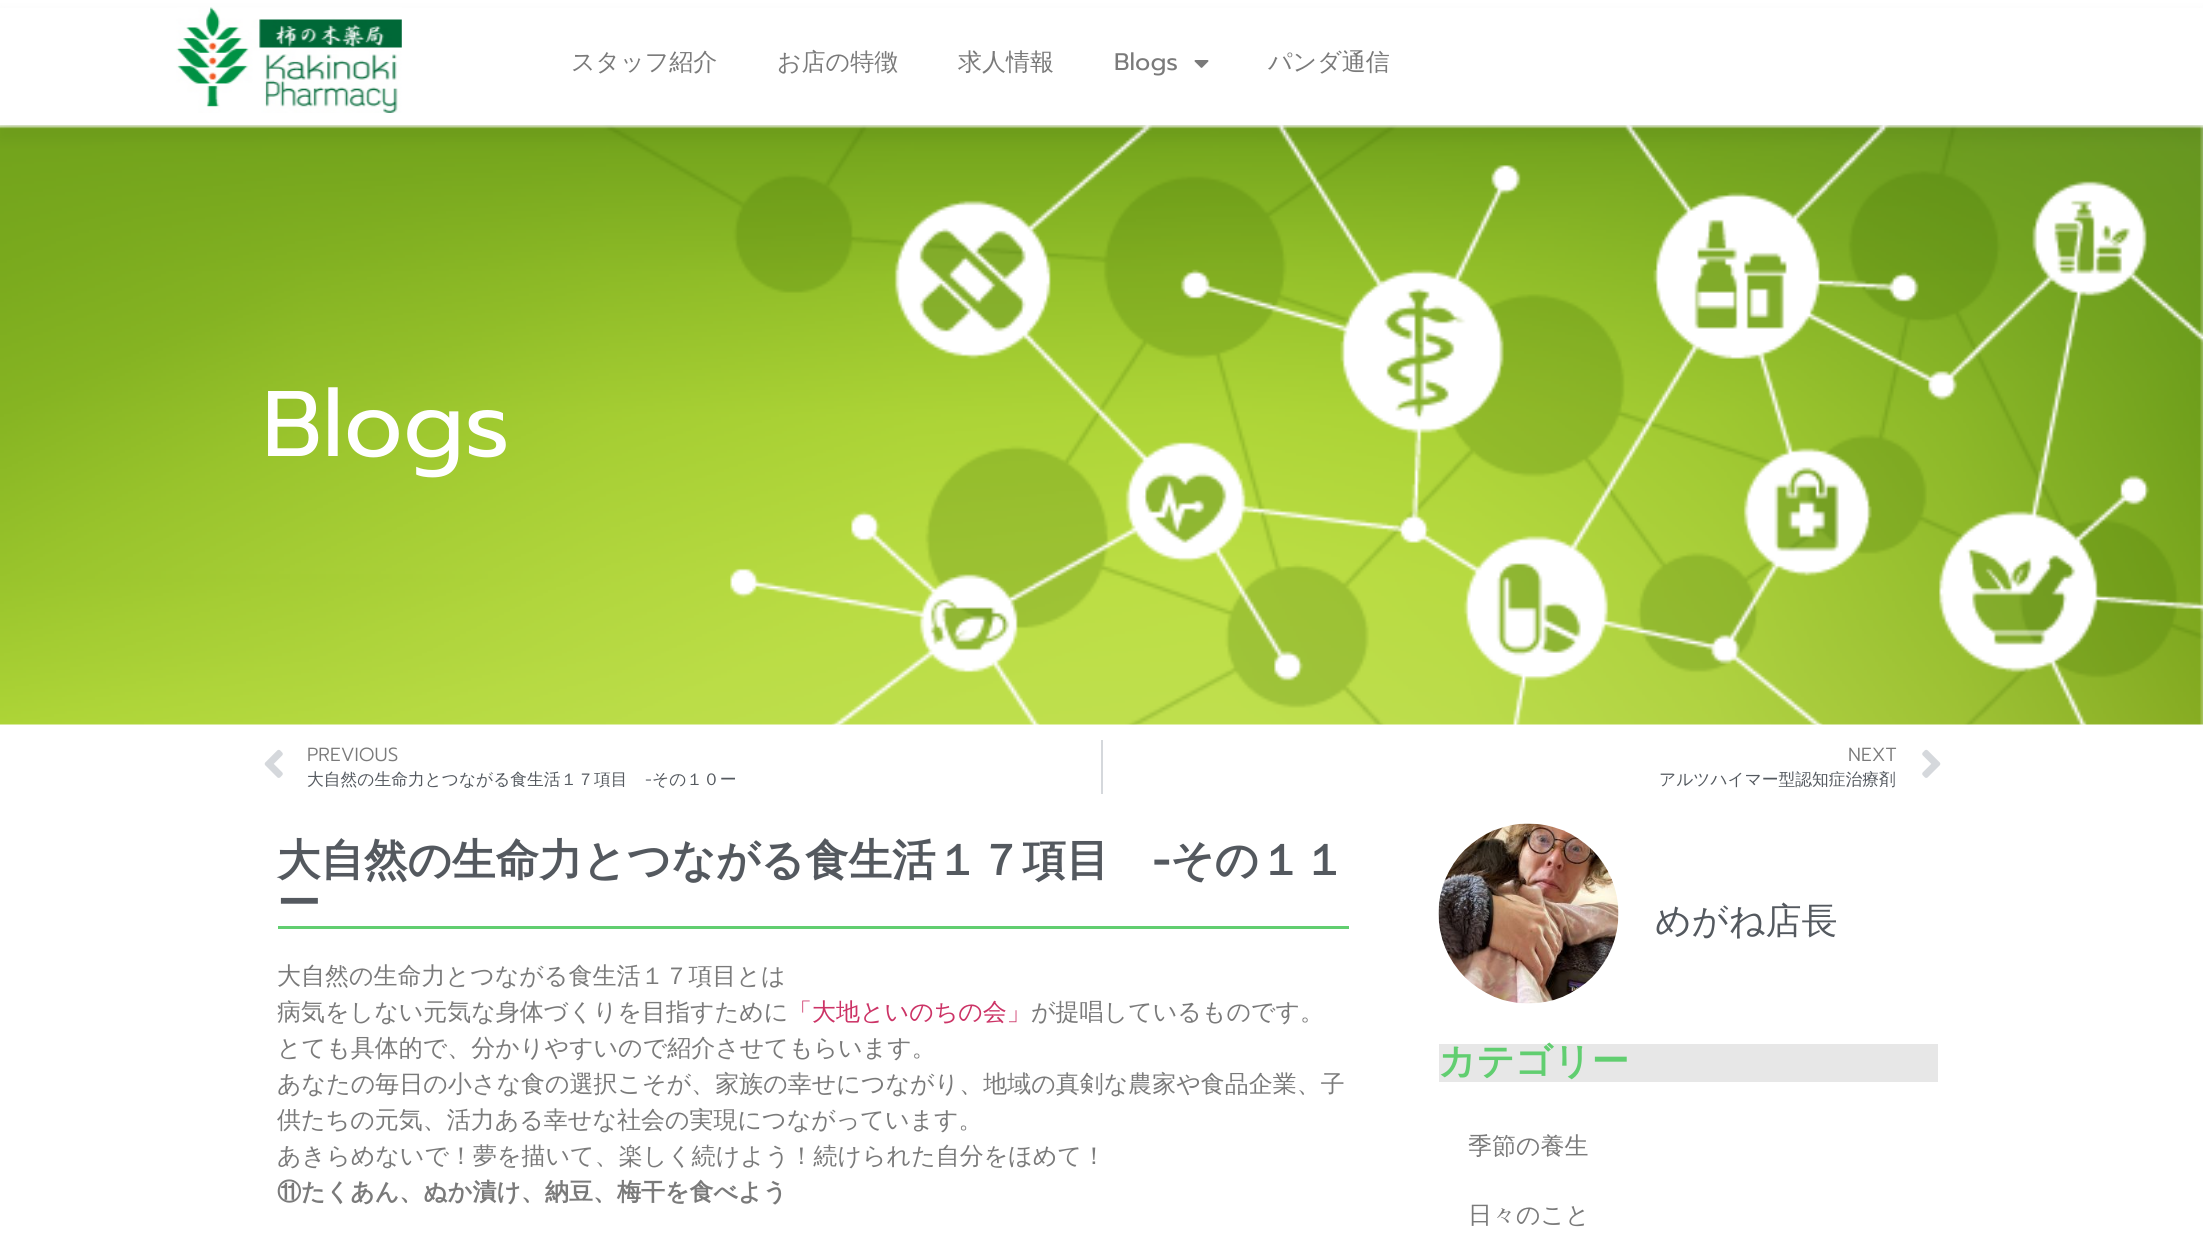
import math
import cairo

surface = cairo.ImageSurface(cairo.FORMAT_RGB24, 2203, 1246)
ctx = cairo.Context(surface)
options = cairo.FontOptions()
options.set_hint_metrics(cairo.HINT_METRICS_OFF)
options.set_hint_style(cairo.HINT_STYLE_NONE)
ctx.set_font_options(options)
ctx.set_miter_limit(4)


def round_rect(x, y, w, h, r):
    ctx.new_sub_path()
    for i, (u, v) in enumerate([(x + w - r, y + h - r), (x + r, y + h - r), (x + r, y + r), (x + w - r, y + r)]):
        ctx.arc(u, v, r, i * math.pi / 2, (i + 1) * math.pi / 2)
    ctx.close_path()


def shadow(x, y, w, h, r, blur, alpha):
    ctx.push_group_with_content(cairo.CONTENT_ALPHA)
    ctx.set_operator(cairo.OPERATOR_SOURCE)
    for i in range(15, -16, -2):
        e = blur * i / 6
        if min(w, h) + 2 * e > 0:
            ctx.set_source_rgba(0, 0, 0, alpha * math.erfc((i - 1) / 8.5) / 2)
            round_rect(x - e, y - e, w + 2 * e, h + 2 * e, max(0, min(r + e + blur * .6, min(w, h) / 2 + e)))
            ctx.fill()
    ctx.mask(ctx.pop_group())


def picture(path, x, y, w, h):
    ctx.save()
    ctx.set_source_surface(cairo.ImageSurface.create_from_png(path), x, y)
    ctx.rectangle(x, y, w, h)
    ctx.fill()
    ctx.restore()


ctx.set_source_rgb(1, 1, 1)
ctx.paint()
picture("img3.png", 0, 125, 2203, 600)
ctx.set_source_rgb(0, 0, 0)
shadow(0, 14, 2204, 124, 0, 7.5, 0.05)
ctx.set_source_rgb(1, 1, 1)
ctx.rectangle(0, 8, 2203, 117)
ctx.fill()
picture("img1.png", 176, 7, 226, 106)
ctx.select_font_face("WenQuanYi Zen Hei Medium")
ctx.set_font_size(24)
ctx.set_source_rgb(0.478, 0.478, 0.478)
ctx.move_to(571, 70)
ctx.show_text("スタッフ紹介")
ctx.move_to(777, 70)
ctx.show_text("お店の特徴")
ctx.move_to(958, 70)
ctx.show_text("求人情報")
ctx.select_font_face("Prompt")
ctx.move_to(1114, 70)
ctx.show_text("Blogs")
picture("img2.png", 1194, 60, 15, 8)
ctx.select_font_face("WenQuanYi Zen Hei Medium")
ctx.move_to(1268, 70)
ctx.show_text("パンダ通信")
ctx.select_font_face("Prompt")
ctx.set_font_size(93)
ctx.set_source_rgb(1, 1, 1)
ctx.move_to(262, 456)
ctx.show_text("Blogs")
picture("img4.png", 264, 749, 19, 29)
ctx.select_font_face("Prompt Light")
ctx.set_font_size(19)
ctx.set_source_rgb(0.478, 0.478, 0.478)
ctx.move_to(307, 761)
ctx.show_text("PREVIOUS")
ctx.select_font_face("WenQuanYi Zen Hei Medium")
ctx.set_font_size(16.75)
ctx.set_source_rgb(0.329, 0.349, 0.373)
ctx.move_to(307, 785)
ctx.show_text("大自然の生命力とつながる食生活１７項目")
ctx.select_font_face("Prompt Light")
ctx.move_to(645, 785)
ctx.show_text("−")
ctx.select_font_face("WenQuanYi Zen Hei Medium")
ctx.move_to(652, 785)
ctx.show_text("その１０ー")
ctx.set_source_rgb(0.835, 0.847, 0.863)
ctx.rectangle(1101, 740, 2, 54)
ctx.fill()
ctx.select_font_face("Prompt Light")
ctx.set_font_size(19)
ctx.set_source_rgb(0.478, 0.478, 0.478)
ctx.move_to(1848, 761)
ctx.show_text("NEXT")
ctx.select_font_face("WenQuanYi Zen Hei Medium")
ctx.set_font_size(16.75)
ctx.set_source_rgb(0.329, 0.349, 0.373)
ctx.move_to(1659, 785)
ctx.show_text("アルツハイマー型認知症治療剤")
picture("img5.png", 1922, 749, 19, 29)
ctx.set_source_rgb(0.38, 0.808, 0.439)
ctx.rectangle(278, 926, 1071, 3)
ctx.fill()
ctx.select_font_face("WenQuanYi Zen Hei", cairo.FONT_SLANT_NORMAL, cairo.FONT_WEIGHT_BOLD)
ctx.set_font_size(43.5)
ctx.set_source_rgb(0.329, 0.349, 0.373)
ctx.move_to(277, 875)
ctx.show_text("大自然の生命力とつながる食生活１７項目")
ctx.select_font_face("Prompt SemiBold")
ctx.move_to(1153, 875)
ctx.show_text("−")
ctx.select_font_face("WenQuanYi Zen Hei", cairo.FONT_SLANT_NORMAL, cairo.FONT_WEIGHT_BOLD)
ctx.move_to(1170, 875)
ctx.show_text("その１１")
ctx.move_to(277, 918)
ctx.show_text("ー")
ctx.select_font_face("WenQuanYi Zen Hei Medium")
ctx.set_font_size(24)
ctx.set_source_rgb(0.478, 0.478, 0.478)
ctx.move_to(277, 984)
ctx.show_text("大自然の生命力とつながる食生活１７項目とは")
ctx.move_to(277, 1020)
ctx.show_text("病気をしない元気な身体づくりを目指すために")
ctx.set_source_rgb(0.8, 0.2, 0.4)
ctx.move_to(788, 1020)
ctx.show_text("「大地といのちの会」")
ctx.set_source_rgb(0.478, 0.478, 0.478)
ctx.move_to(1031, 1020)
ctx.show_text("が提唱しているものです。")
ctx.move_to(277, 1056)
ctx.show_text("とても具体的で、分かりやすいので紹介させてもらいます。")
ctx.move_to(277, 1092)
ctx.show_text("あなたの毎日の小さな食の選択こそが、家族の幸せにつながり、地域の真剣な農家や食品企業、子")
ctx.move_to(277, 1128)
ctx.show_text("供たちの元気、活力ある幸せな社会の実現につながっています。")
ctx.move_to(277, 1164)
ctx.show_text("あきらめないで！夢を描いて、楽しく続けよう！続けられた自分をほめて！")
ctx.select_font_face("WenQuanYi Zen Hei", cairo.FONT_SLANT_NORMAL, cairo.FONT_WEIGHT_BOLD)
ctx.move_to(277, 1200)
ctx.show_text("⑪たくあん、ぬか漬け、納豆、梅干を食べよう")
picture("img6.png", 1438, 823, 181, 181)
ctx.select_font_face("WenQuanYi Zen Hei Medium")
ctx.set_font_size(36)
ctx.set_source_rgb(0.329, 0.349, 0.373)
ctx.move_to(1655, 933)
ctx.show_text("めがね店長")
ctx.set_source_rgb(0.906, 0.906, 0.906)
ctx.rectangle(1439, 1044, 499, 38)
ctx.fill()
ctx.select_font_face("WenQuanYi Zen Hei", cairo.FONT_SLANT_NORMAL, cairo.FONT_WEIGHT_BOLD)
ctx.set_font_size(37.5)
ctx.set_source_rgb(0.38, 0.808, 0.439)
ctx.move_to(1438, 1074)
ctx.show_text("カテゴリー")
ctx.select_font_face("WenQuanYi Zen Hei Medium")
ctx.set_font_size(24)
ctx.set_source_rgb(0.478, 0.478, 0.478)
ctx.move_to(1468, 1154)
ctx.show_text("季節の養生")
ctx.move_to(1468, 1223)
ctx.show_text("日々のこと")
surface.write_to_png("page.png")
